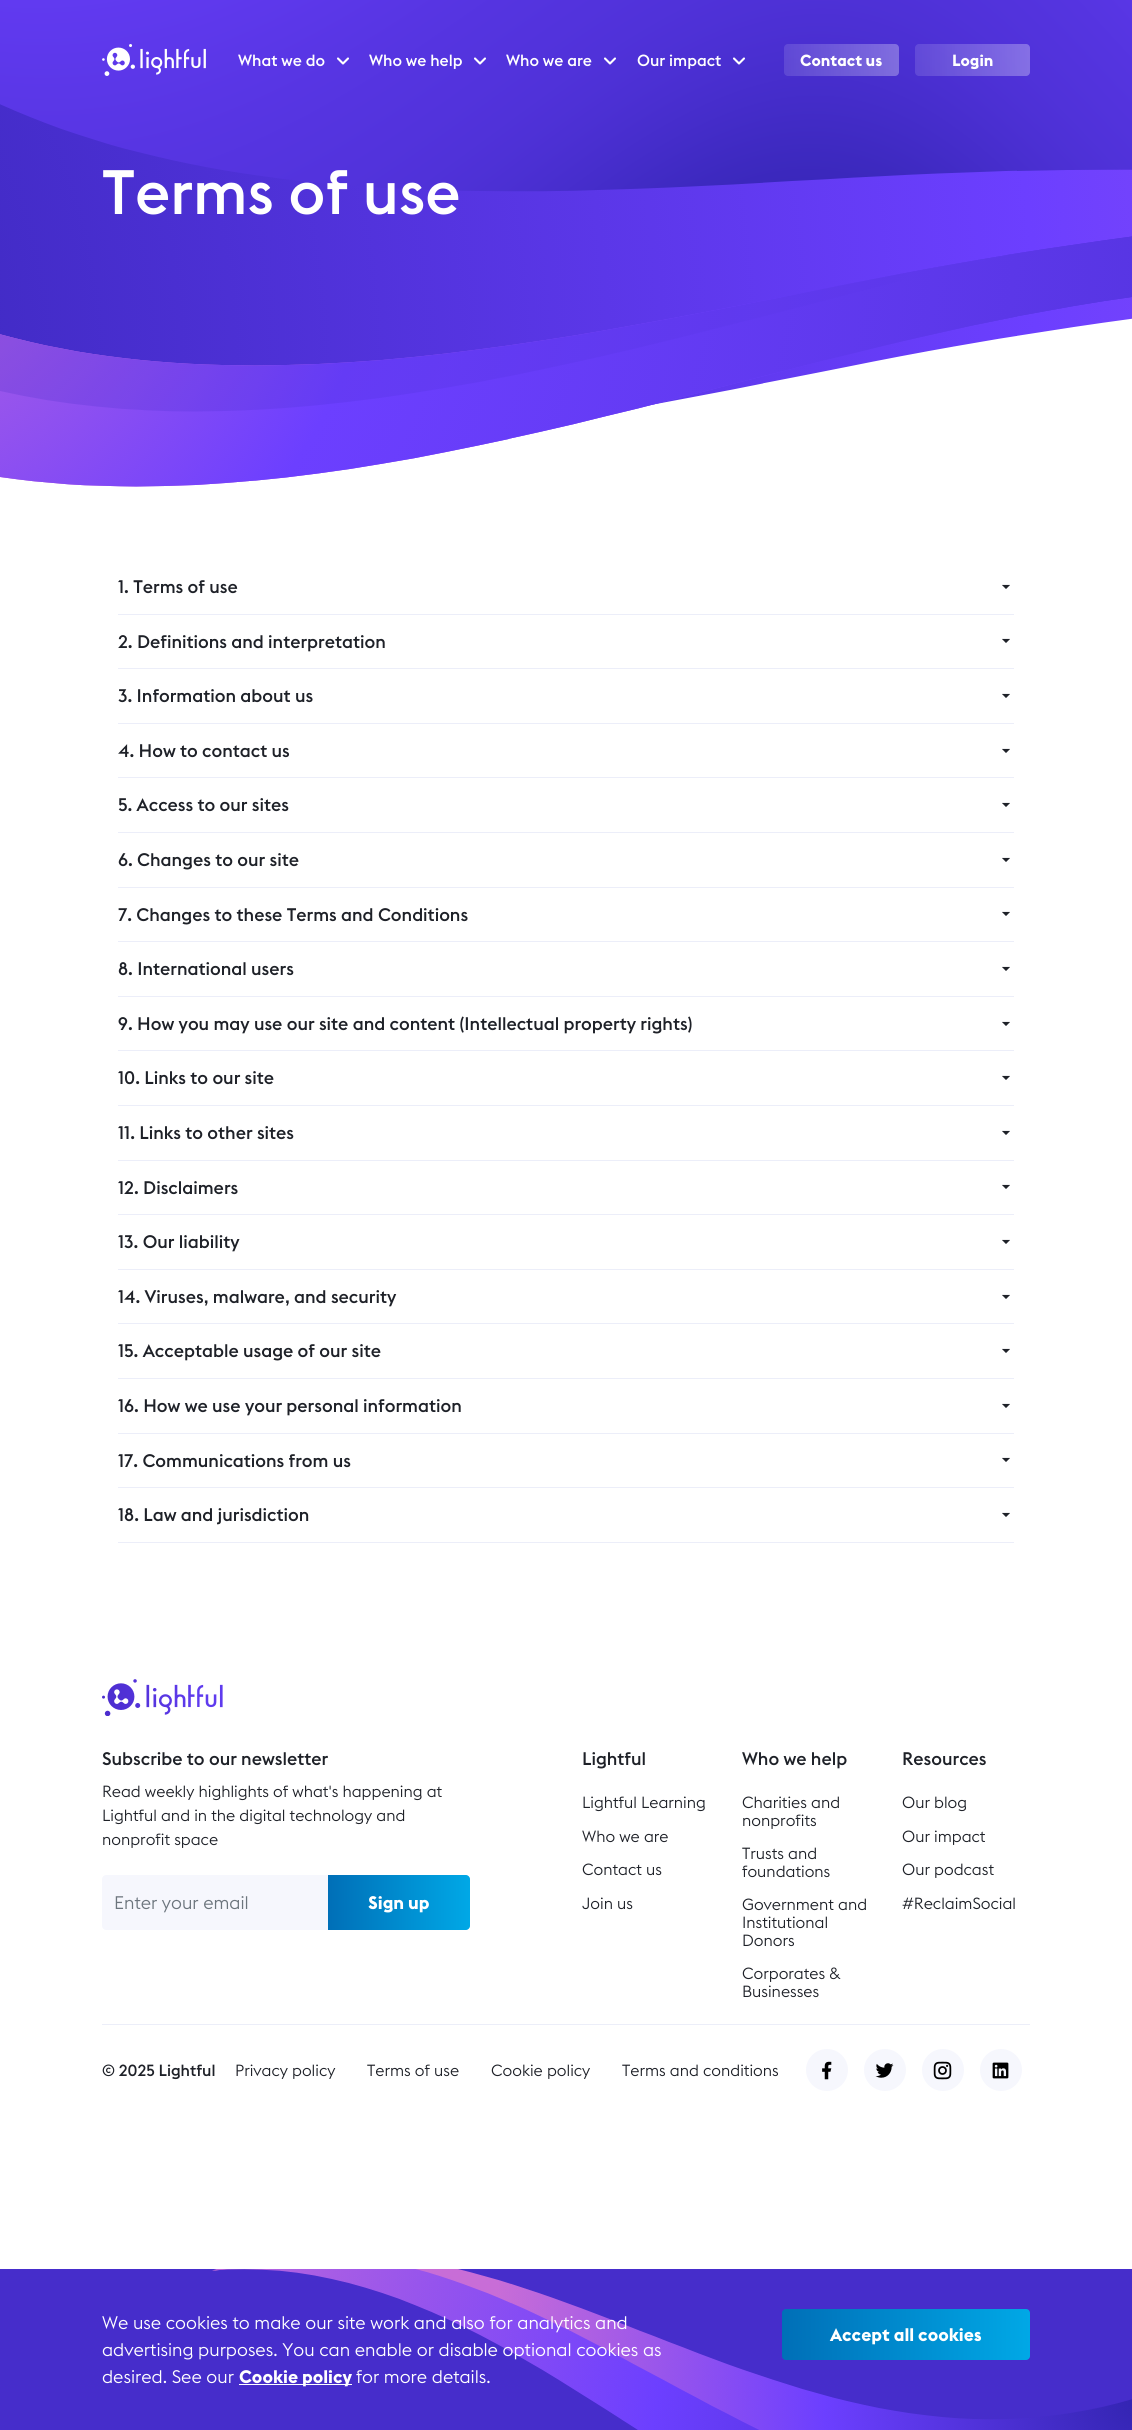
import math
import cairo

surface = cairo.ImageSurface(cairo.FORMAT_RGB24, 1132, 2430)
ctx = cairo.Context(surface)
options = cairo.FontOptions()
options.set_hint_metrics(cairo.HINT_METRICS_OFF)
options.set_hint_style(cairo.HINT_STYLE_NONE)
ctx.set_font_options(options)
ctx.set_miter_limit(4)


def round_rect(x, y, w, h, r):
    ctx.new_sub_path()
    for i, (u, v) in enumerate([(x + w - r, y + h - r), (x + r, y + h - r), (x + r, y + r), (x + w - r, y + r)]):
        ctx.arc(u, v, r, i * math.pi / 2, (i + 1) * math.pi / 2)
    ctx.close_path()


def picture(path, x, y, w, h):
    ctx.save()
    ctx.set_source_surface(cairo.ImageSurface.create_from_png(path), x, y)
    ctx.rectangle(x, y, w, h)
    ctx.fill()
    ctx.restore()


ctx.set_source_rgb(1, 1, 1)
ctx.paint()
picture("img2.png", 0, 0, 1132, 192)
picture("img1.png", 102, 44, 104, 32)
ctx.select_font_face("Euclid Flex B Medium")
ctx.set_font_size(16)
ctx.set_source_rgb(1, 1, 1)
ctx.move_to(238, 66)
ctx.show_text("What we do")
ctx.new_path()
ctx.move_to(338, 58.5)
ctx.line_to(343, 63.5)
ctx.line_to(348, 58.5)
ctx.set_line_width(2.1)
ctx.set_line_cap(cairo.LINE_CAP_ROUND)
ctx.set_line_join(cairo.LINE_JOIN_ROUND)
ctx.stroke()
ctx.move_to(369, 66)
ctx.show_text("Who we help")
ctx.new_path()
ctx.move_to(475, 58.5)
ctx.line_to(480, 63.5)
ctx.line_to(485, 58.5)
ctx.stroke()
ctx.move_to(506, 66)
ctx.show_text("Who we are")
ctx.new_path()
ctx.move_to(605, 58.5)
ctx.line_to(610, 63.5)
ctx.line_to(615, 58.5)
ctx.stroke()
ctx.move_to(637, 66)
ctx.show_text("Our impact")
ctx.new_path()
ctx.move_to(734, 58.5)
ctx.line_to(739, 63.5)
ctx.line_to(744, 58.5)
ctx.stroke()
ctx.select_font_face("Euclid Flex B", cairo.FONT_SLANT_NORMAL, cairo.FONT_WEIGHT_BOLD)
ctx.move_to(800, 66)
ctx.show_text("Contact us")
ctx.move_to(952, 66)
ctx.show_text("Login")
picture("img3.png", 0, 104, 1132, 456)
ctx.select_font_face("Euclid Flex B Medium")
ctx.set_font_size(61.75)
ctx.move_to(102, 214)
ctx.show_text("Terms of use")
ctx.set_source_rgb(0.925, 0.933, 0.973)
ctx.rectangle(118, 614, 896, 1)
ctx.fill()
ctx.set_font_size(18)
ctx.set_source_rgb(0.118, 0.129, 0.157)
ctx.move_to(118, 593)
ctx.show_text("1. Terms of use")
picture("img4.png", 1002, 584, 8, 5)
ctx.set_source_rgb(0.925, 0.933, 0.973)
ctx.rectangle(118, 668, 896, 1)
ctx.fill()
ctx.set_source_rgb(0.118, 0.129, 0.157)
ctx.move_to(118, 648)
ctx.show_text("2. Definitions and interpretation")
picture("img4.png", 1002, 638, 8, 5)
ctx.set_source_rgb(0.925, 0.933, 0.973)
ctx.rectangle(118, 723, 896, 1)
ctx.fill()
ctx.set_source_rgb(0.118, 0.129, 0.157)
ctx.move_to(118, 702)
ctx.show_text("3. Information about us")
picture("img4.png", 1002, 693, 8, 5)
ctx.set_source_rgb(0.925, 0.933, 0.973)
ctx.rectangle(118, 777, 896, 1)
ctx.fill()
ctx.set_source_rgb(0.118, 0.129, 0.157)
ctx.move_to(118, 757)
ctx.show_text("4. How to contact us")
picture("img4.png", 1002, 748, 8, 5)
ctx.set_source_rgb(0.925, 0.933, 0.973)
ctx.rectangle(118, 832, 896, 1)
ctx.fill()
ctx.set_source_rgb(0.118, 0.129, 0.157)
ctx.move_to(118, 811)
ctx.show_text("5. Access to our sites")
picture("img4.png", 1002, 802, 8, 5)
ctx.set_source_rgb(0.925, 0.933, 0.973)
ctx.rectangle(118, 887, 896, 1)
ctx.fill()
ctx.set_source_rgb(0.118, 0.129, 0.157)
ctx.move_to(118, 866)
ctx.show_text("6. Changes to our site")
picture("img4.png", 1002, 857, 8, 5)
ctx.set_source_rgb(0.925, 0.933, 0.973)
ctx.rectangle(118, 941, 896, 1)
ctx.fill()
ctx.set_source_rgb(0.118, 0.129, 0.157)
ctx.move_to(118, 921)
ctx.show_text("7. Changes to these Terms and Conditions")
picture("img4.png", 1002, 911, 8, 5)
ctx.set_source_rgb(0.925, 0.933, 0.973)
ctx.rectangle(118, 996, 896, 1)
ctx.fill()
ctx.set_source_rgb(0.118, 0.129, 0.157)
ctx.move_to(118, 975)
ctx.show_text("8. International users")
picture("img4.png", 1002, 966, 8, 5)
ctx.set_source_rgb(0.925, 0.933, 0.973)
ctx.rectangle(118, 1050, 896, 1)
ctx.fill()
ctx.set_source_rgb(0.118, 0.129, 0.157)
ctx.move_to(118, 1030)
ctx.show_text("9. How you may use our site and content (Intellectual property rights)")
picture("img4.png", 1002, 1021, 8, 5)
ctx.set_source_rgb(0.925, 0.933, 0.973)
ctx.rectangle(118, 1105, 896, 1)
ctx.fill()
ctx.set_source_rgb(0.118, 0.129, 0.157)
ctx.move_to(118, 1084)
ctx.show_text("10. Links to our site")
picture("img4.png", 1002, 1075, 8, 5)
ctx.set_source_rgb(0.925, 0.933, 0.973)
ctx.rectangle(118, 1160, 896, 1)
ctx.fill()
ctx.set_source_rgb(0.118, 0.129, 0.157)
ctx.move_to(118, 1139)
ctx.show_text("11. Links to other sites")
picture("img4.png", 1002, 1130, 8, 5)
ctx.set_source_rgb(0.925, 0.933, 0.973)
ctx.rectangle(118, 1214, 896, 1)
ctx.fill()
ctx.set_source_rgb(0.118, 0.129, 0.157)
ctx.move_to(118, 1194)
ctx.show_text("12. Disclaimers")
picture("img4.png", 1002, 1184, 8, 5)
ctx.set_source_rgb(0.925, 0.933, 0.973)
ctx.rectangle(118, 1269, 896, 1)
ctx.fill()
ctx.set_source_rgb(0.118, 0.129, 0.157)
ctx.move_to(118, 1248)
ctx.show_text("13. Our liability")
picture("img4.png", 1002, 1239, 8, 5)
ctx.set_source_rgb(0.925, 0.933, 0.973)
ctx.rectangle(118, 1323, 896, 1)
ctx.fill()
ctx.set_source_rgb(0.118, 0.129, 0.157)
ctx.move_to(118, 1303)
ctx.show_text("14. Viruses, malware, and security")
picture("img4.png", 1002, 1294, 8, 5)
ctx.set_source_rgb(0.925, 0.933, 0.973)
ctx.rectangle(118, 1378, 896, 1)
ctx.fill()
ctx.set_source_rgb(0.118, 0.129, 0.157)
ctx.move_to(118, 1357)
ctx.show_text("15. Acceptable usage of our site")
picture("img4.png", 1002, 1348, 8, 5)
ctx.set_source_rgb(0.925, 0.933, 0.973)
ctx.rectangle(118, 1433, 896, 1)
ctx.fill()
ctx.set_source_rgb(0.118, 0.129, 0.157)
ctx.move_to(118, 1412)
ctx.show_text("16. How we use your personal information")
picture("img4.png", 1002, 1403, 8, 5)
ctx.set_source_rgb(0.925, 0.933, 0.973)
ctx.rectangle(118, 1487, 896, 1)
ctx.fill()
ctx.set_source_rgb(0.118, 0.129, 0.157)
ctx.move_to(118, 1467)
ctx.show_text("17. Communications from us")
picture("img4.png", 1002, 1457, 8, 5)
ctx.set_source_rgb(0.925, 0.933, 0.973)
ctx.rectangle(118, 1542, 896, 1)
ctx.fill()
ctx.set_source_rgb(0.118, 0.129, 0.157)
ctx.move_to(118, 1521)
ctx.show_text("18. Law and jurisdiction")
picture("img4.png", 1002, 1512, 8, 5)
picture("img5.png", 102, 1679, 121, 37)
ctx.move_to(102, 1765)
ctx.show_text("Subscribe to our newsletter")
ctx.select_font_face("Euclid Flex B Light")
ctx.set_font_size(16)
ctx.move_to(102, 1797)
ctx.show_text("Read weekly highlights of what's happening at")
ctx.move_to(102, 1821)
ctx.show_text("Lightful and in the digital technology and")
ctx.move_to(102, 1845)
ctx.show_text("nonprofit space")
ctx.set_source_rgb(0.961, 0.965, 0.992)
ctx.new_path()
ctx.move_to(106, 1875)
ctx.line_to(328, 1875)
ctx.line_to(328, 1930)
ctx.line_to(106, 1930)
ctx.curve_to(104, 1930, 102, 1928, 102, 1926)
ctx.line_to(102, 1879)
ctx.curve_to(102, 1877, 104, 1875, 106, 1875)
ctx.close_path()
ctx.fill()
ctx.set_font_size(18)
ctx.set_source_rgb(0.424, 0.459, 0.49)
ctx.move_to(114, 1909)
ctx.show_text("Enter your email")
gradient = cairo.LinearGradient(328, 1903, 612, 1903)
gradient.add_color_stop_rgba(0, 0, 0.435, 0.718, 1)
gradient.add_color_stop_rgba(0.5, 0, 0.659, 0.902, 1)
gradient.add_color_stop_rgba(1, 0, 0.435, 0.718, 1)
ctx.set_source(gradient)
ctx.new_path()
ctx.move_to(328, 1875)
ctx.line_to(466, 1875)
ctx.curve_to(468, 1875, 470, 1877, 470, 1879)
ctx.line_to(470, 1926)
ctx.curve_to(470, 1928, 468, 1930, 466, 1930)
ctx.line_to(328, 1930)
ctx.close_path()
ctx.fill()
ctx.select_font_face("Euclid Flex B", cairo.FONT_SLANT_NORMAL, cairo.FONT_WEIGHT_BOLD)
ctx.set_source_rgb(1, 1, 1)
ctx.move_to(368, 1909)
ctx.show_text("Sign up")
ctx.select_font_face("Euclid Flex B Medium")
ctx.set_source_rgb(0.118, 0.129, 0.157)
ctx.move_to(582, 1765)
ctx.show_text("Lightful")
ctx.select_font_face("Euclid Flex B Light")
ctx.set_font_size(16)
ctx.move_to(582, 1808)
ctx.show_text("Lightful Learning")
ctx.move_to(582, 1842)
ctx.show_text("Who we are")
ctx.move_to(582, 1875)
ctx.show_text("Contact us")
ctx.move_to(582, 1909)
ctx.show_text("Join us")
ctx.select_font_face("Euclid Flex B Medium")
ctx.set_font_size(18)
ctx.move_to(742, 1765)
ctx.show_text("Who we help")
ctx.select_font_face("Euclid Flex B Light")
ctx.set_font_size(16)
ctx.move_to(742, 1808)
ctx.show_text("Charities and")
ctx.move_to(742, 1826)
ctx.show_text("nonprofits")
ctx.move_to(742, 1859)
ctx.show_text("Trusts and")
ctx.move_to(742, 1877)
ctx.show_text("foundations")
ctx.move_to(742, 1910)
ctx.show_text("Government and")
ctx.move_to(742, 1928)
ctx.show_text("Institutional")
ctx.move_to(742, 1946)
ctx.show_text("Donors")
ctx.move_to(742, 1979)
ctx.show_text("Corporates &")
ctx.move_to(742, 1997)
ctx.show_text("Businesses")
ctx.select_font_face("Euclid Flex B Medium")
ctx.set_font_size(18)
ctx.move_to(902, 1765)
ctx.show_text("Resources")
ctx.select_font_face("Euclid Flex B Light")
ctx.set_font_size(16)
ctx.move_to(902, 1808)
ctx.show_text("Our blog")
ctx.move_to(902, 1842)
ctx.show_text("Our impact")
ctx.move_to(902, 1875)
ctx.show_text("Our podcast")
ctx.move_to(902, 1909)
ctx.show_text("#ReclaimSocial")
ctx.set_source_rgb(0.925, 0.933, 0.973)
ctx.rectangle(102, 2024, 928, 1)
ctx.fill()
ctx.select_font_face("Euclid Flex B Medium")
ctx.set_source_rgb(0.118, 0.129, 0.157)
ctx.move_to(102, 2076)
ctx.show_text("© 2025 Lightful")
ctx.select_font_face("Euclid Flex B Light")
ctx.move_to(235, 2076)
ctx.show_text("Privacy policy")
ctx.move_to(367, 2076)
ctx.show_text("Terms of use")
ctx.move_to(491, 2076)
ctx.show_text("Cookie policy")
ctx.move_to(622, 2076)
ctx.show_text("Terms and conditions")
ctx.set_source_rgb(0.961, 0.965, 0.992)
ctx.new_path()
ctx.arc(827, 2070, 21, 0, 2 * math.pi)
ctx.fill()
picture("img6.png", 822, 2061, 10, 19)
ctx.arc(885, 2070, 21, 0, 2 * math.pi)
ctx.fill()
picture("img7.png", 875, 2063, 19, 15)
ctx.arc(943, 2070, 21, 0, 2 * math.pi)
ctx.fill()
picture("img8.png", 933, 2061, 19, 19)
ctx.arc(1001, 2070, 21, 0, 2 * math.pi)
ctx.fill()
picture("img9.png", 992, 2062, 17, 17)
picture("img10.png", 0, 2269, 1132, 161)
ctx.set_font_size(18)
ctx.set_source_rgb(1, 1, 1)
ctx.move_to(102, 2329)
ctx.show_text("We use cookies to make our site work and also for analytics and")
ctx.move_to(102, 2356)
ctx.show_text("advertising purposes. You can enable or disable optional cookies as")
ctx.move_to(102, 2383)
ctx.show_text("desired. See our")
ctx.rectangle(239, 2384, 113, 1)
ctx.fill()
ctx.select_font_face("Euclid Flex B", cairo.FONT_SLANT_NORMAL, cairo.FONT_WEIGHT_BOLD)
ctx.move_to(239, 2383)
ctx.show_text("Cookie policy")
ctx.select_font_face("Euclid Flex B Light")
ctx.move_to(356, 2383)
ctx.show_text("for more details.")
gradient = cairo.LinearGradient(782, 2335, 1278, 2335)
gradient.add_color_stop_rgba(0, 0, 0.435, 0.718, 1)
gradient.add_color_stop_rgba(0.5, 0, 0.659, 0.902, 1)
gradient.add_color_stop_rgba(1, 0, 0.435, 0.718, 1)
ctx.set_source(gradient)
round_rect(782, 2309, 248, 51, 4)
ctx.fill()
ctx.select_font_face("Euclid Flex B", cairo.FONT_SLANT_NORMAL, cairo.FONT_WEIGHT_BOLD)
ctx.set_source_rgb(1, 1, 1)
ctx.move_to(830, 2341)
ctx.show_text("Accept all cookies")
surface.write_to_png("page.png")
